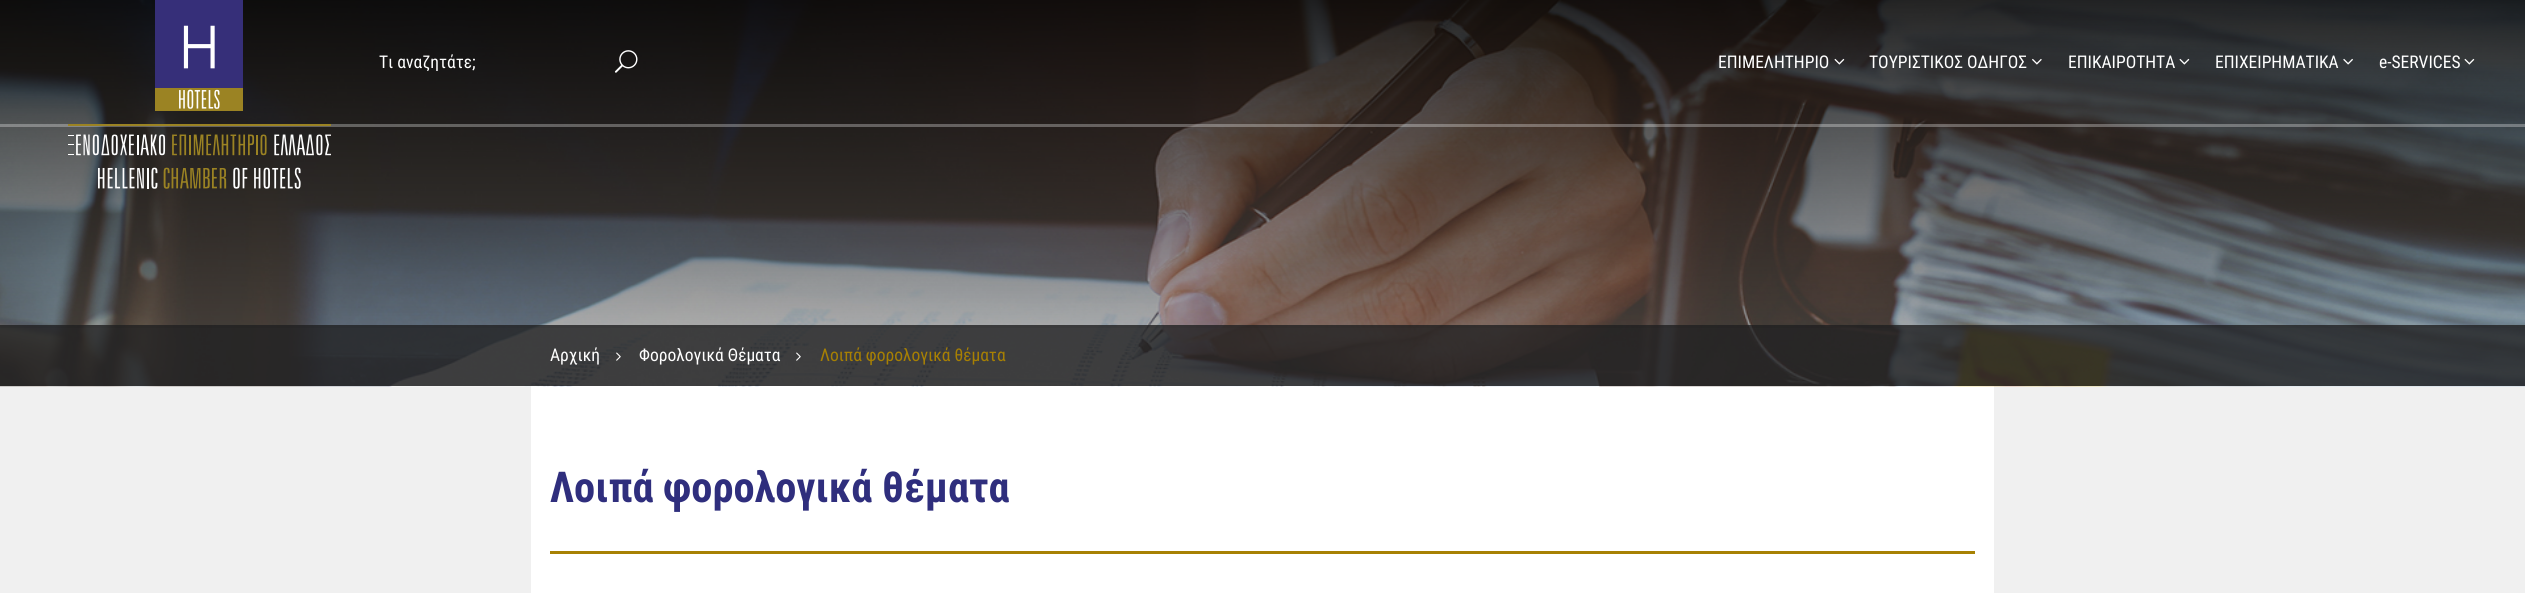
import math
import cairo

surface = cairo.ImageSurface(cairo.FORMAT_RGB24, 2525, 593)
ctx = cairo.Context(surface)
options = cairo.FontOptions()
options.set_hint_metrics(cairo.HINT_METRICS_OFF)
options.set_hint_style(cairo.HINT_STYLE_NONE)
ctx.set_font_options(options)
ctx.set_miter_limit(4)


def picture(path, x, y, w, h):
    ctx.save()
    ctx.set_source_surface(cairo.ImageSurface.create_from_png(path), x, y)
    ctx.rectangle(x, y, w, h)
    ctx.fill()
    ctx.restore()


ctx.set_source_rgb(0.941, 0.941, 0.941)
ctx.paint()
ctx.set_source_rgb(1, 1, 1)
ctx.rectangle(531, 386, 1463, 207)
ctx.fill()
picture("img8.png", 0, 0, 2525, 387)
ctx.set_source_rgba(0.129, 0.129, 0.133, 0.8)
ctx.rectangle(0, 325, 2525, 61)
ctx.fill()
gradient = cairo.LinearGradient(1263, 0, 1263, 346)
gradient.add_color_stop_rgba(0, 0, 0, 0, 0.8)
gradient.add_color_stop_rgba(1, 0, 0, 0, 0)
ctx.set_source(gradient)
ctx.rectangle(0, 0, 2525, 328)
ctx.fill()
ctx.set_source_rgba(1, 1, 1, 0.3)
ctx.rectangle(0, 124, 2525, 3)
ctx.fill()
picture("img1.png", 68, 0, 263, 189)
ctx.save()
ctx.rectangle(379, 51, 234, 20)
ctx.clip()
ctx.select_font_face("Roboto Condensed")
ctx.set_font_size(17.5)
ctx.set_source_rgb(1, 1, 1)
ctx.move_to(379, 68)
ctx.show_text("Τι αναζητάτε;")
ctx.restore()
picture("img2.png", 614, 50, 24, 23)
ctx.select_font_face("Roboto Condensed")
ctx.set_font_size(17.5)
ctx.set_source_rgb(1, 1, 1)
ctx.move_to(1718, 68)
ctx.show_text("ΕΠΙΜΕΛΗΤΗΡΙΟ")
picture("img3.png", 1834, 58, 11, 7)
ctx.move_to(1869, 68)
ctx.show_text("ΤΟΥΡΙΣΤΙΚΟΣ ΟΔΗΓΟΣ")
picture("img4.png", 2032, 58, 10, 7)
ctx.move_to(2068, 68)
ctx.show_text("ΕΠΙΚΑΙΡΟΤΗΤΑ")
picture("img5.png", 2179, 58, 11, 7)
ctx.move_to(2215, 68)
ctx.show_text("ΕΠΙΧΕΙΡΗΜΑΤΙΚΑ")
picture("img6.png", 2343, 58, 10, 7)
ctx.move_to(2379, 68)
ctx.show_text("e-SERVICES")
picture("img7.png", 2464, 58, 11, 7)
ctx.move_to(550, 361)
ctx.show_text("Αρχική")
picture("img9.png", 616, 352, 5, 9)
ctx.move_to(639, 361)
ctx.show_text("Φορολογικά Θέματα")
picture("img10.png", 796, 352, 5, 9)
ctx.set_source_rgb(0.655, 0.502, 0.012)
ctx.move_to(820, 361)
ctx.show_text("Λοιπά φορολογικά θέματα")
ctx.select_font_face("Roboto Condensed", cairo.FONT_SLANT_NORMAL, cairo.FONT_WEIGHT_BOLD)
ctx.set_font_size(42.5)
ctx.set_source_rgb(0.184, 0.18, 0.49)
ctx.move_to(550, 502)
ctx.show_text("Λοιπά φορολογικά θέματα")
ctx.set_source_rgb(0.655, 0.506, 0.012)
ctx.rectangle(550, 551, 1425, 3)
ctx.fill()
surface.write_to_png("page.png")
